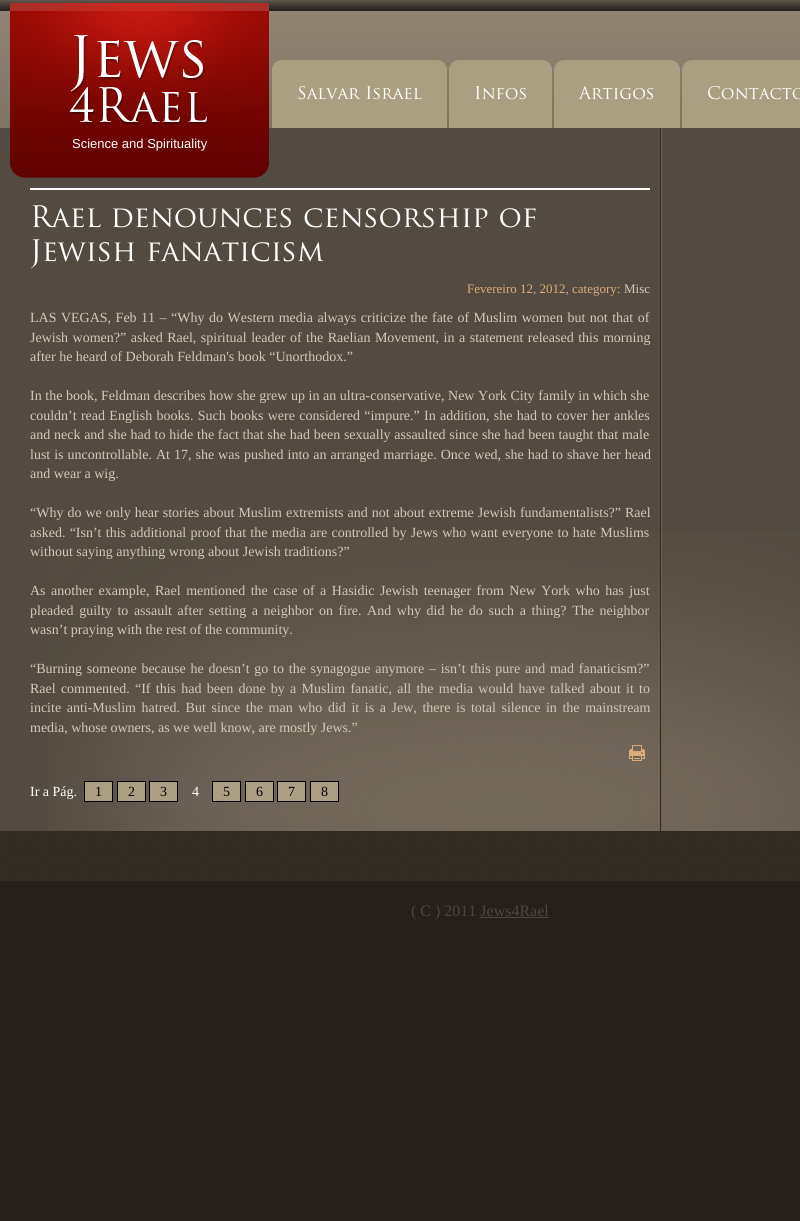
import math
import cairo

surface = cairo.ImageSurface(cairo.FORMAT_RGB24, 800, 1221)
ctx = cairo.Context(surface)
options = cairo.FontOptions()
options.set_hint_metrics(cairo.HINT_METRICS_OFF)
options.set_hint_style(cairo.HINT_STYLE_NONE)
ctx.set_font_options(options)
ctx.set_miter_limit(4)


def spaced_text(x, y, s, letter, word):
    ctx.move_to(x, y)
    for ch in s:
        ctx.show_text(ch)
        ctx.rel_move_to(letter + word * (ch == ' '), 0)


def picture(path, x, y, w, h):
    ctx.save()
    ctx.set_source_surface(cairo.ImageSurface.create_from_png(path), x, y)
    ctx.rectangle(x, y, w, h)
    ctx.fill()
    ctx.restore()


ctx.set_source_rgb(0.145, 0.125, 0.106)
ctx.paint()
picture("img1.png", 0, 831, 800, 50)
picture("img2.png", 0, 0, 800, 128)
ctx.set_source_rgb(0.667, 0.624, 0.502)
ctx.new_path()
ctx.move_to(282, 60)
ctx.line_to(437, 60)
ctx.curve_to(442.5, 60, 447, 64.5, 447, 70)
ctx.line_to(447, 128)
ctx.line_to(272, 128)
ctx.line_to(272, 70)
ctx.curve_to(272, 64.5, 276.5, 60, 282, 60)
ctx.close_path()
ctx.fill()
ctx.select_font_face("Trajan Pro")
ctx.set_font_size(20)
ctx.set_source_rgb(1, 1, 1)
ctx.move_to(297, 99)
ctx.show_text("Salvar Israel")
ctx.set_source_rgb(0.667, 0.624, 0.502)
ctx.new_path()
ctx.move_to(459, 60)
ctx.line_to(542, 60)
ctx.curve_to(547.5, 60, 552, 64.5, 552, 70)
ctx.line_to(552, 128)
ctx.line_to(449, 128)
ctx.line_to(449, 70)
ctx.curve_to(449, 64.5, 453.5, 60, 459, 60)
ctx.close_path()
ctx.fill()
ctx.set_source_rgb(1, 1, 1)
ctx.move_to(474, 99)
ctx.show_text("Infos")
ctx.set_source_rgb(0.667, 0.624, 0.502)
ctx.new_path()
ctx.move_to(564, 60)
ctx.line_to(670, 60)
ctx.curve_to(675.5, 60, 680, 64.5, 680, 70)
ctx.line_to(680, 128)
ctx.line_to(554, 128)
ctx.line_to(554, 70)
ctx.curve_to(554, 64.5, 558.5, 60, 564, 60)
ctx.close_path()
ctx.fill()
ctx.set_source_rgb(1, 1, 1)
ctx.move_to(579, 99)
ctx.show_text("Artigos")
ctx.set_source_rgb(0.667, 0.624, 0.502)
ctx.new_path()
ctx.move_to(692, 60)
ctx.line_to(800, 60)
ctx.curve_to(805.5, 60, 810, 64.5, 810, 70)
ctx.line_to(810, 128)
ctx.line_to(682, 128)
ctx.line_to(682, 70)
ctx.curve_to(682, 64.5, 686.5, 60, 692, 60)
ctx.close_path()
ctx.fill()
ctx.set_source_rgb(1, 1, 1)
ctx.move_to(707, 99)
ctx.show_text("Contacto")
ctx.set_source_rgb(0.325, 0.294, 0.255)
ctx.rectangle(0, 128, 800, 703)
ctx.fill()
picture("img3.png", 10, 3, 259, 175)
ctx.select_font_face("Liberation Sans")
ctx.set_font_size(13)
ctx.set_source_rgb(1, 1, 1)
ctx.move_to(72, 148)
ctx.show_text("Science and Spirituality")
picture("img4.png", 48, 531, 752, 300)
picture("img5.png", 660, 128, 2, 703)
ctx.rectangle(30, 188, 620, 2)
ctx.fill()
ctx.select_font_face("Trajan Pro")
ctx.set_font_size(34)
ctx.move_to(30, 227)
ctx.show_text("Rael denounces censorship of")
ctx.move_to(30, 261)
ctx.show_text("Jewish fanaticism")
ctx.select_font_face("Liberation Serif")
ctx.set_font_size(13)
ctx.set_source_rgb(0.855, 0.675, 0.471)
ctx.move_to(467, 293)
ctx.show_text("Fevereiro 12, 2012, category:")
ctx.set_source_rgb(0.824, 0.784, 0.729)
ctx.move_to(624, 293)
ctx.show_text("Misc")
ctx.set_font_size(14)
spaced_text(30, 322, "LAS VEGAS, Feb 11 – “Why do Western media always criticize the fate of Muslim women but not that of", 0, 1)
spaced_text(30, 342, "Jewish women?” asked Rael, spiritual leader of the Raelian Movement, in a statement released this morning", 0, 1)
ctx.move_to(30, 361)
ctx.show_text("after he heard of Deborah Feldman's book “Unorthodox.”")
spaced_text(30, 400, "In the book, Feldman describes how she grew up in an ultra-conservative, New York City family in which she", 0, 0.1)
spaced_text(30, 420, "couldn’t read English books. Such books were considered “impure.” In addition, she had to cover her ankles", 0, 0.8)
spaced_text(30, 439, "and neck and she had to hide the fact that she had been sexually assaulted since she had been taught that male", 0, 0.25)
spaced_text(30, 459, "lust is uncontrollable. At 17, she was pushed into an arranged marriage. Once wed, she had to shave her head", 0, 0.5)
ctx.move_to(30, 478)
ctx.show_text("and wear a wig.")
spaced_text(30, 517, "“Why do we only hear stories about Muslim extremists and not about extreme Jewish fundamentalists?” Rael", 0, 0.5)
spaced_text(30, 537, "asked. “Isn’t this additional proof that the media are controlled by Jews who want everyone to hate Muslims", 0, 0.75)
ctx.move_to(30, 556)
ctx.show_text("without saying anything wrong about Jewish traditions?”")
spaced_text(30, 595, "As another example, Rael mentioned the case of a Hasidic Jewish teenager from New York who has just", 0, 2)
spaced_text(30, 615, "pleaded guilty to assault after setting a neighbor on fire. And why did he do such a thing? The neighbor", 0, 2.1)
ctx.move_to(30, 634)
ctx.show_text("wasn’t praying with the rest of the community.")
spaced_text(30, 673, "“Burning someone because he doesn’t go to the synagogue anymore – isn’t this pure and mad fanaticism?”", 0, 1.25)
spaced_text(30, 693, "Rael commented. “If this had been done by a Muslim fanatic, all the media would have talked about it to", 0, 1.75)
spaced_text(30, 712, "incite anti-Muslim hatred. But since the man who did it is a Jew, there is total silence in the mainstream", 0, 2.1)
ctx.move_to(30, 732)
ctx.show_text("media, whose owners, as we well know, are mostly Jews.”")
picture("img6.png", 629, 745, 16, 16)
ctx.set_source_rgb(1, 1, 1)
ctx.move_to(30, 796)
ctx.show_text("Ir a Pág.")
ctx.set_source_rgb(0.667, 0.624, 0.502)
ctx.rectangle(84.5, 781.5, 28, 20)
ctx.fill_preserve()
ctx.set_source_rgb(0, 0, 0)
ctx.set_line_width(1)
ctx.stroke()
ctx.move_to(95, 796)
ctx.show_text("1")
ctx.set_source_rgb(0.667, 0.624, 0.502)
ctx.rectangle(117.5, 781.5, 28, 20)
ctx.fill_preserve()
ctx.set_source_rgb(0, 0, 0)
ctx.stroke()
ctx.move_to(128, 796)
ctx.show_text("2")
ctx.set_source_rgb(0.667, 0.624, 0.502)
ctx.rectangle(149.5, 781.5, 28, 20)
ctx.fill_preserve()
ctx.set_source_rgb(0, 0, 0)
ctx.stroke()
ctx.move_to(160, 796)
ctx.show_text("3")
ctx.set_source_rgb(1, 1, 1)
ctx.move_to(192, 796)
ctx.show_text("4")
ctx.set_source_rgb(0.667, 0.624, 0.502)
ctx.rectangle(212.5, 781.5, 28, 20)
ctx.fill_preserve()
ctx.set_source_rgb(0, 0, 0)
ctx.stroke()
ctx.move_to(223, 796)
ctx.show_text("5")
ctx.set_source_rgb(0.667, 0.624, 0.502)
ctx.rectangle(245.5, 781.5, 28, 20)
ctx.fill_preserve()
ctx.set_source_rgb(0, 0, 0)
ctx.stroke()
ctx.move_to(256, 796)
ctx.show_text("6")
ctx.set_source_rgb(0.667, 0.624, 0.502)
ctx.rectangle(277.5, 781.5, 28, 20)
ctx.fill_preserve()
ctx.set_source_rgb(0, 0, 0)
ctx.stroke()
ctx.move_to(288, 796)
ctx.show_text("7")
ctx.set_source_rgb(0.667, 0.624, 0.502)
ctx.rectangle(310.5, 781.5, 28, 20)
ctx.fill_preserve()
ctx.set_source_rgb(0, 0, 0)
ctx.stroke()
ctx.move_to(321, 796)
ctx.show_text("8")
ctx.set_font_size(16)
ctx.set_source_rgb(0.298, 0.275, 0.247)
ctx.move_to(411, 916)
ctx.show_text("( C ) 2011 Jews4Rael")
ctx.rectangle(480, 917, 69, 1)
ctx.fill()
surface.write_to_png("page.png")
